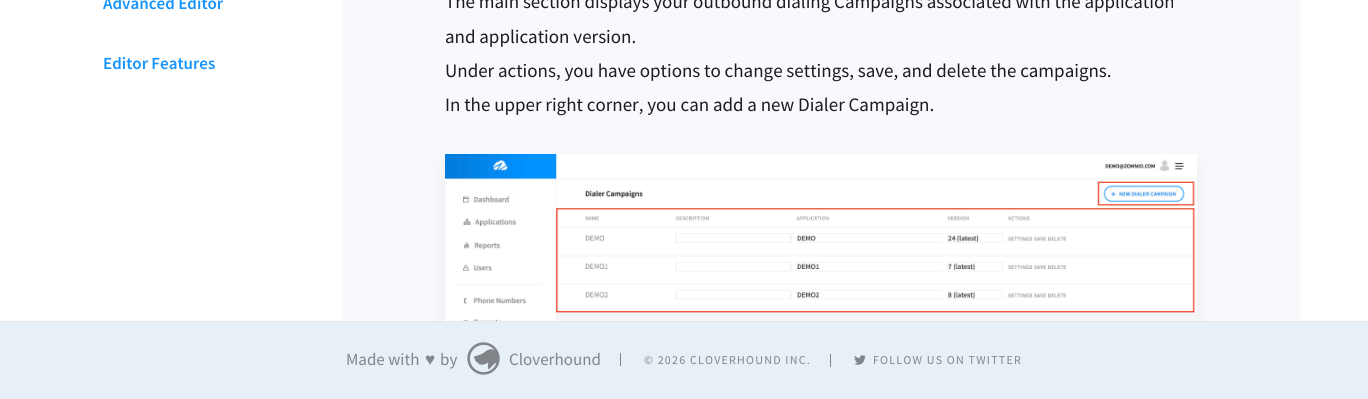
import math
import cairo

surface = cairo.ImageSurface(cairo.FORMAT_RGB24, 1368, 399)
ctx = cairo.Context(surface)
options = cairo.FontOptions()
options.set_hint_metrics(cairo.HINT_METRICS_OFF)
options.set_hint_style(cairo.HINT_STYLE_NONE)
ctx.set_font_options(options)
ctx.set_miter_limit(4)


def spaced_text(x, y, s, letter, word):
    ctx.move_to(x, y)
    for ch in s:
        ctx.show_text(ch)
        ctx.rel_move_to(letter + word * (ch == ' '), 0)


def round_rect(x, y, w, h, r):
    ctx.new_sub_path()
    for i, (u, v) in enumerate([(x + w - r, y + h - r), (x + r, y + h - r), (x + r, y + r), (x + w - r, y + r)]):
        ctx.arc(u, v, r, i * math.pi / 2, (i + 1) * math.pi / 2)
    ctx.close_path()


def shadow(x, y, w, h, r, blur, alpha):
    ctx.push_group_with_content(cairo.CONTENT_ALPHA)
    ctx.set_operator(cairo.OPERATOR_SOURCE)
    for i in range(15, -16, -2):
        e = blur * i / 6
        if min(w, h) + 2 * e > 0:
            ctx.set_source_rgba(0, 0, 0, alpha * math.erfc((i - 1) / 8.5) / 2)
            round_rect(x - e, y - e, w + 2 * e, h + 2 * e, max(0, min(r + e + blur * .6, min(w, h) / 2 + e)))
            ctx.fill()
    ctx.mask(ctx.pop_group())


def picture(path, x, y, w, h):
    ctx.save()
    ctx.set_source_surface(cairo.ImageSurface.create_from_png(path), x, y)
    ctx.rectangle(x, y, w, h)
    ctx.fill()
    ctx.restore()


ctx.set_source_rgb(1, 1, 1)
ctx.paint()
ctx.select_font_face("Source Sans Pro SemiBold")
ctx.set_font_size(17)
ctx.set_source_rgb(0.09, 0.58, 0.984)
ctx.move_to(103, 9)
ctx.show_text("Advanced Editor")
ctx.move_to(103, 69)
ctx.show_text("Editor Features")
ctx.set_source_rgb(0.965, 0.976, 0.988)
ctx.rectangle(342, 0, 958, 321)
ctx.fill()
ctx.select_font_face("Source Sans Pro")
ctx.set_font_size(19)
ctx.set_source_rgb(0.106, 0.11, 0.118)
ctx.move_to(445, 8)
ctx.show_text("The main section displays your outbound dialing Campaigns associated with the application")
ctx.move_to(445, 43)
ctx.show_text("and application version.")
ctx.move_to(445, 77)
ctx.show_text("Under actions, you have options to change settings, save, and delete the campaigns.")
ctx.move_to(445, 111)
ctx.show_text("In the upper right corner, you can add a new Dialer Campaign.")
ctx.set_source_rgb(0.878, 0.882, 0.898)
shadow(450, 169, 742, 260, 0, 10, 1)
picture("img1.png", 445, 154, 752, 167)
ctx.set_source_rgb(0.91, 0.91, 0.914)
ctx.rectangle(0, 321, 1368, 1)
ctx.fill()
ctx.set_source_rgb(0.906, 0.937, 0.965)
ctx.rectangle(0, 322, 1368, 77)
ctx.fill()
ctx.set_font_size(17)
ctx.set_source_rgb(0.506, 0.525, 0.541)
ctx.move_to(346, 365)
ctx.show_text("Made with")
ctx.select_font_face("Liberation Sans")
ctx.move_to(425, 365)
ctx.show_text("♥")
ctx.select_font_face("Source Sans Pro")
ctx.move_to(440, 365)
ctx.show_text("by")
picture("img2.png", 467, 342, 33, 33)
ctx.move_to(509, 365)
ctx.show_text("Cloverhound")
ctx.rectangle(620, 353, 1, 13)
ctx.fill()
ctx.set_font_size(12)
spaced_text(644, 364, "© 2026 CLOVERHOUND INC.", 1.2, 0)
ctx.rectangle(830, 354, 1, 13)
ctx.fill()
picture("img3.png", 854, 355, 12, 10)
spaced_text(873, 364, "FOLLOW US ON TWITTER", 1.2, 0)
surface.write_to_png("page.png")
